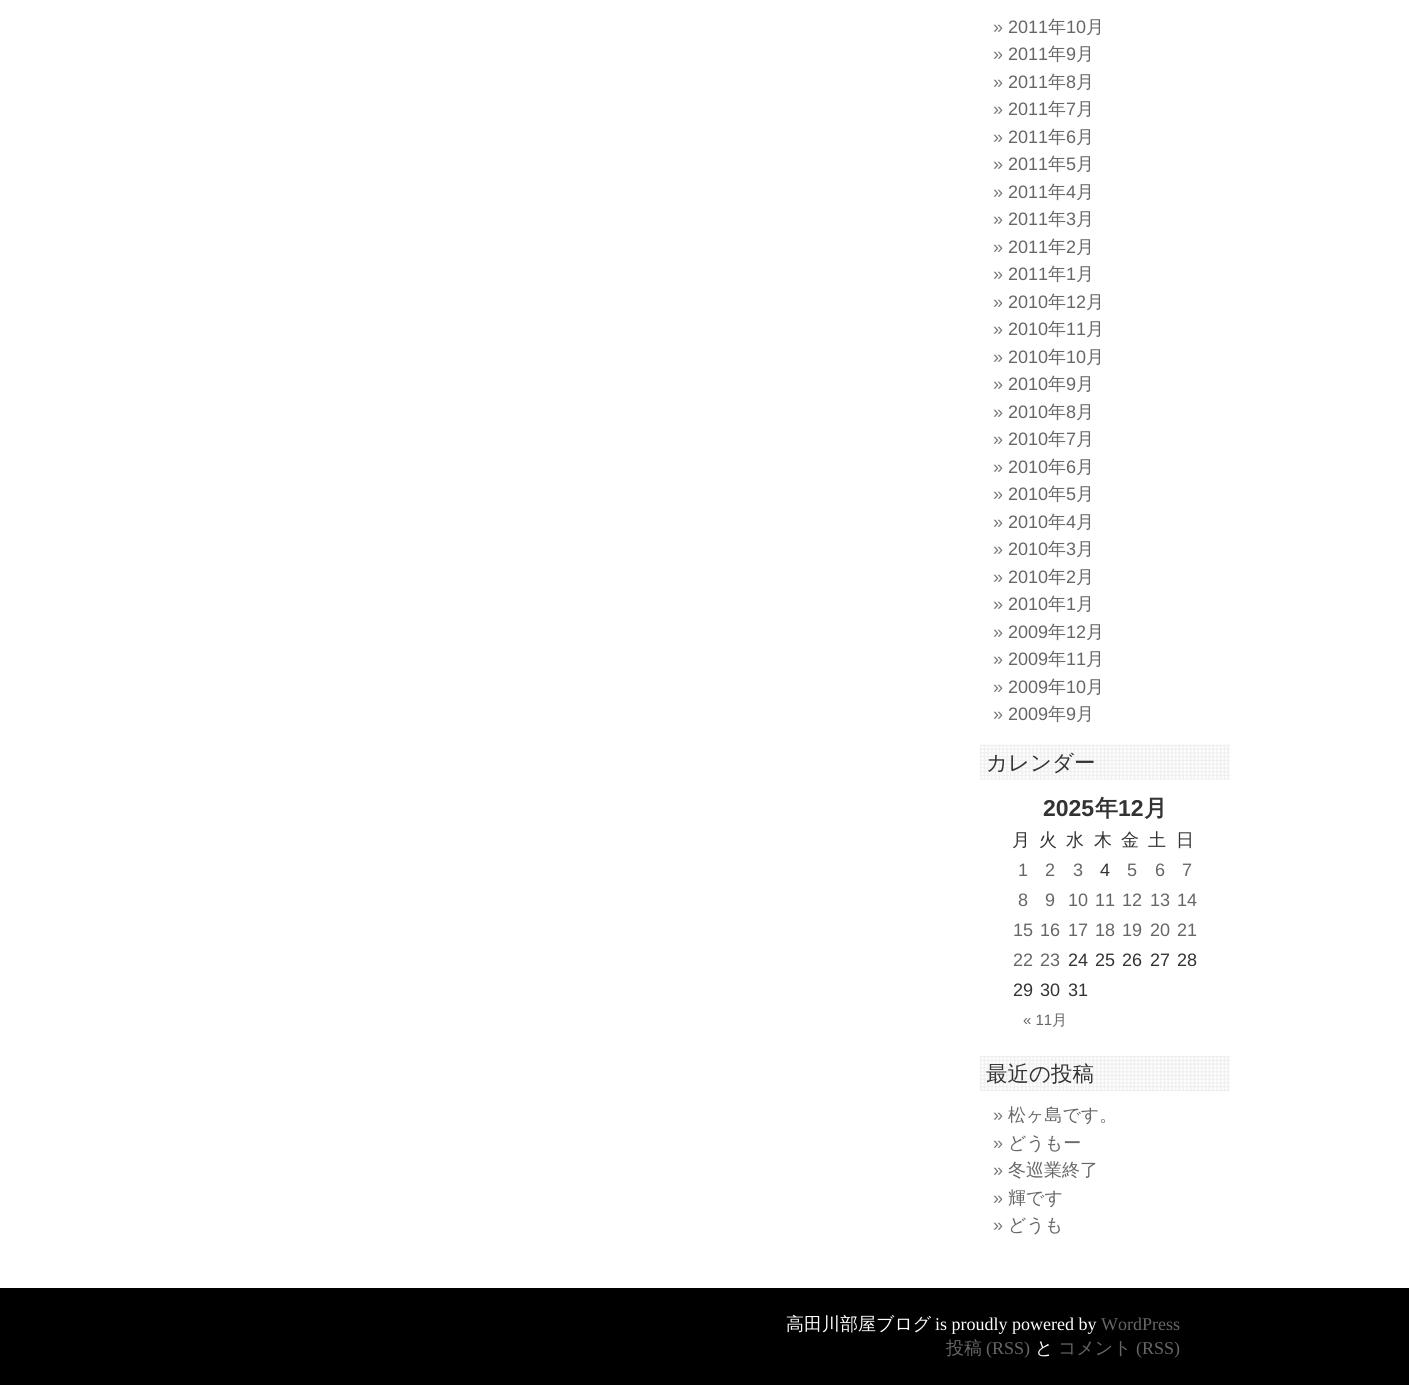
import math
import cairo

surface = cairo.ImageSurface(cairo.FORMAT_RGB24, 1409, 1385)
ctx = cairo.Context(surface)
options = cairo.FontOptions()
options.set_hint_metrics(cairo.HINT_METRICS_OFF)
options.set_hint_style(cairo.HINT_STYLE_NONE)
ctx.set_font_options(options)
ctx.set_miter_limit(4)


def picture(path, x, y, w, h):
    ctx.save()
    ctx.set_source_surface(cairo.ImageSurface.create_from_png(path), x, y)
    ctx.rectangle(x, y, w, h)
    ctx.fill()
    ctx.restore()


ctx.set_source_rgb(1, 1, 1)
ctx.paint()
ctx.select_font_face("Liberation Sans")
ctx.set_font_size(18)
ctx.set_source_rgb(0.467, 0.467, 0.467)
ctx.move_to(993, 33)
ctx.show_text("»")
ctx.set_source_rgb(0.4, 0.4, 0.4)
ctx.move_to(1008, 33)
ctx.show_text("2011")
ctx.select_font_face("WenQuanYi Zen Hei Medium")
ctx.move_to(1048, 33)
ctx.show_text("年")
ctx.select_font_face("Liberation Sans")
ctx.move_to(1066, 33)
ctx.show_text("10")
ctx.select_font_face("WenQuanYi Zen Hei Medium")
ctx.move_to(1086, 33)
ctx.show_text("月")
ctx.select_font_face("Liberation Sans")
ctx.set_source_rgb(0.467, 0.467, 0.467)
ctx.move_to(993, 60)
ctx.show_text("»")
ctx.set_source_rgb(0.4, 0.4, 0.4)
ctx.move_to(1008, 60)
ctx.show_text("2011")
ctx.select_font_face("WenQuanYi Zen Hei Medium")
ctx.move_to(1048, 60)
ctx.show_text("年")
ctx.select_font_face("Liberation Sans")
ctx.move_to(1066, 60)
ctx.show_text("9")
ctx.select_font_face("WenQuanYi Zen Hei Medium")
ctx.move_to(1076, 60)
ctx.show_text("月")
ctx.select_font_face("Liberation Sans")
ctx.set_source_rgb(0.467, 0.467, 0.467)
ctx.move_to(993, 88)
ctx.show_text("»")
ctx.set_source_rgb(0.4, 0.4, 0.4)
ctx.move_to(1008, 88)
ctx.show_text("2011")
ctx.select_font_face("WenQuanYi Zen Hei Medium")
ctx.move_to(1048, 88)
ctx.show_text("年")
ctx.select_font_face("Liberation Sans")
ctx.move_to(1066, 88)
ctx.show_text("8")
ctx.select_font_face("WenQuanYi Zen Hei Medium")
ctx.move_to(1076, 88)
ctx.show_text("月")
ctx.select_font_face("Liberation Sans")
ctx.set_source_rgb(0.467, 0.467, 0.467)
ctx.move_to(993, 115)
ctx.show_text("»")
ctx.set_source_rgb(0.4, 0.4, 0.4)
ctx.move_to(1008, 115)
ctx.show_text("2011")
ctx.select_font_face("WenQuanYi Zen Hei Medium")
ctx.move_to(1048, 115)
ctx.show_text("年")
ctx.select_font_face("Liberation Sans")
ctx.move_to(1066, 115)
ctx.show_text("7")
ctx.select_font_face("WenQuanYi Zen Hei Medium")
ctx.move_to(1076, 115)
ctx.show_text("月")
ctx.select_font_face("Liberation Sans")
ctx.set_source_rgb(0.467, 0.467, 0.467)
ctx.move_to(993, 143)
ctx.show_text("»")
ctx.set_source_rgb(0.4, 0.4, 0.4)
ctx.move_to(1008, 143)
ctx.show_text("2011")
ctx.select_font_face("WenQuanYi Zen Hei Medium")
ctx.move_to(1048, 143)
ctx.show_text("年")
ctx.select_font_face("Liberation Sans")
ctx.move_to(1066, 143)
ctx.show_text("6")
ctx.select_font_face("WenQuanYi Zen Hei Medium")
ctx.move_to(1076, 143)
ctx.show_text("月")
ctx.select_font_face("Liberation Sans")
ctx.set_source_rgb(0.467, 0.467, 0.467)
ctx.move_to(993, 170)
ctx.show_text("»")
ctx.set_source_rgb(0.4, 0.4, 0.4)
ctx.move_to(1008, 170)
ctx.show_text("2011")
ctx.select_font_face("WenQuanYi Zen Hei Medium")
ctx.move_to(1048, 170)
ctx.show_text("年")
ctx.select_font_face("Liberation Sans")
ctx.move_to(1066, 170)
ctx.show_text("5")
ctx.select_font_face("WenQuanYi Zen Hei Medium")
ctx.move_to(1076, 170)
ctx.show_text("月")
ctx.select_font_face("Liberation Sans")
ctx.set_source_rgb(0.467, 0.467, 0.467)
ctx.move_to(993, 198)
ctx.show_text("»")
ctx.set_source_rgb(0.4, 0.4, 0.4)
ctx.move_to(1008, 198)
ctx.show_text("2011")
ctx.select_font_face("WenQuanYi Zen Hei Medium")
ctx.move_to(1048, 198)
ctx.show_text("年")
ctx.select_font_face("Liberation Sans")
ctx.move_to(1066, 198)
ctx.show_text("4")
ctx.select_font_face("WenQuanYi Zen Hei Medium")
ctx.move_to(1076, 198)
ctx.show_text("月")
ctx.select_font_face("Liberation Sans")
ctx.set_source_rgb(0.467, 0.467, 0.467)
ctx.move_to(993, 225)
ctx.show_text("»")
ctx.set_source_rgb(0.4, 0.4, 0.4)
ctx.move_to(1008, 225)
ctx.show_text("2011")
ctx.select_font_face("WenQuanYi Zen Hei Medium")
ctx.move_to(1048, 225)
ctx.show_text("年")
ctx.select_font_face("Liberation Sans")
ctx.move_to(1066, 225)
ctx.show_text("3")
ctx.select_font_face("WenQuanYi Zen Hei Medium")
ctx.move_to(1076, 225)
ctx.show_text("月")
ctx.select_font_face("Liberation Sans")
ctx.set_source_rgb(0.467, 0.467, 0.467)
ctx.move_to(993, 253)
ctx.show_text("»")
ctx.set_source_rgb(0.4, 0.4, 0.4)
ctx.move_to(1008, 253)
ctx.show_text("2011")
ctx.select_font_face("WenQuanYi Zen Hei Medium")
ctx.move_to(1048, 253)
ctx.show_text("年")
ctx.select_font_face("Liberation Sans")
ctx.move_to(1066, 253)
ctx.show_text("2")
ctx.select_font_face("WenQuanYi Zen Hei Medium")
ctx.move_to(1076, 253)
ctx.show_text("月")
ctx.select_font_face("Liberation Sans")
ctx.set_source_rgb(0.467, 0.467, 0.467)
ctx.move_to(993, 280)
ctx.show_text("»")
ctx.set_source_rgb(0.4, 0.4, 0.4)
ctx.move_to(1008, 280)
ctx.show_text("2011")
ctx.select_font_face("WenQuanYi Zen Hei Medium")
ctx.move_to(1048, 280)
ctx.show_text("年")
ctx.select_font_face("Liberation Sans")
ctx.move_to(1066, 280)
ctx.show_text("1")
ctx.select_font_face("WenQuanYi Zen Hei Medium")
ctx.move_to(1076, 280)
ctx.show_text("月")
ctx.select_font_face("Liberation Sans")
ctx.set_source_rgb(0.467, 0.467, 0.467)
ctx.move_to(993, 308)
ctx.show_text("»")
ctx.set_source_rgb(0.4, 0.4, 0.4)
ctx.move_to(1008, 308)
ctx.show_text("2010")
ctx.select_font_face("WenQuanYi Zen Hei Medium")
ctx.move_to(1048, 308)
ctx.show_text("年")
ctx.select_font_face("Liberation Sans")
ctx.move_to(1066, 308)
ctx.show_text("12")
ctx.select_font_face("WenQuanYi Zen Hei Medium")
ctx.move_to(1086, 308)
ctx.show_text("月")
ctx.select_font_face("Liberation Sans")
ctx.set_source_rgb(0.467, 0.467, 0.467)
ctx.move_to(993, 335)
ctx.show_text("»")
ctx.set_source_rgb(0.4, 0.4, 0.4)
ctx.move_to(1008, 335)
ctx.show_text("2010")
ctx.select_font_face("WenQuanYi Zen Hei Medium")
ctx.move_to(1048, 335)
ctx.show_text("年")
ctx.select_font_face("Liberation Sans")
ctx.move_to(1066, 335)
ctx.show_text("11")
ctx.select_font_face("WenQuanYi Zen Hei Medium")
ctx.move_to(1086, 335)
ctx.show_text("月")
ctx.select_font_face("Liberation Sans")
ctx.set_source_rgb(0.467, 0.467, 0.467)
ctx.move_to(993, 363)
ctx.show_text("»")
ctx.set_source_rgb(0.4, 0.4, 0.4)
ctx.move_to(1008, 363)
ctx.show_text("2010")
ctx.select_font_face("WenQuanYi Zen Hei Medium")
ctx.move_to(1048, 363)
ctx.show_text("年")
ctx.select_font_face("Liberation Sans")
ctx.move_to(1066, 363)
ctx.show_text("10")
ctx.select_font_face("WenQuanYi Zen Hei Medium")
ctx.move_to(1086, 363)
ctx.show_text("月")
ctx.select_font_face("Liberation Sans")
ctx.set_source_rgb(0.467, 0.467, 0.467)
ctx.move_to(993, 390)
ctx.show_text("»")
ctx.set_source_rgb(0.4, 0.4, 0.4)
ctx.move_to(1008, 390)
ctx.show_text("2010")
ctx.select_font_face("WenQuanYi Zen Hei Medium")
ctx.move_to(1048, 390)
ctx.show_text("年")
ctx.select_font_face("Liberation Sans")
ctx.move_to(1066, 390)
ctx.show_text("9")
ctx.select_font_face("WenQuanYi Zen Hei Medium")
ctx.move_to(1076, 390)
ctx.show_text("月")
ctx.select_font_face("Liberation Sans")
ctx.set_source_rgb(0.467, 0.467, 0.467)
ctx.move_to(993, 418)
ctx.show_text("»")
ctx.set_source_rgb(0.4, 0.4, 0.4)
ctx.move_to(1008, 418)
ctx.show_text("2010")
ctx.select_font_face("WenQuanYi Zen Hei Medium")
ctx.move_to(1048, 418)
ctx.show_text("年")
ctx.select_font_face("Liberation Sans")
ctx.move_to(1066, 418)
ctx.show_text("8")
ctx.select_font_face("WenQuanYi Zen Hei Medium")
ctx.move_to(1076, 418)
ctx.show_text("月")
ctx.select_font_face("Liberation Sans")
ctx.set_source_rgb(0.467, 0.467, 0.467)
ctx.move_to(993, 445)
ctx.show_text("»")
ctx.set_source_rgb(0.4, 0.4, 0.4)
ctx.move_to(1008, 445)
ctx.show_text("2010")
ctx.select_font_face("WenQuanYi Zen Hei Medium")
ctx.move_to(1048, 445)
ctx.show_text("年")
ctx.select_font_face("Liberation Sans")
ctx.move_to(1066, 445)
ctx.show_text("7")
ctx.select_font_face("WenQuanYi Zen Hei Medium")
ctx.move_to(1076, 445)
ctx.show_text("月")
ctx.select_font_face("Liberation Sans")
ctx.set_source_rgb(0.467, 0.467, 0.467)
ctx.move_to(993, 473)
ctx.show_text("»")
ctx.set_source_rgb(0.4, 0.4, 0.4)
ctx.move_to(1008, 473)
ctx.show_text("2010")
ctx.select_font_face("WenQuanYi Zen Hei Medium")
ctx.move_to(1048, 473)
ctx.show_text("年")
ctx.select_font_face("Liberation Sans")
ctx.move_to(1066, 473)
ctx.show_text("6")
ctx.select_font_face("WenQuanYi Zen Hei Medium")
ctx.move_to(1076, 473)
ctx.show_text("月")
ctx.select_font_face("Liberation Sans")
ctx.set_source_rgb(0.467, 0.467, 0.467)
ctx.move_to(993, 500)
ctx.show_text("»")
ctx.set_source_rgb(0.4, 0.4, 0.4)
ctx.move_to(1008, 500)
ctx.show_text("2010")
ctx.select_font_face("WenQuanYi Zen Hei Medium")
ctx.move_to(1048, 500)
ctx.show_text("年")
ctx.select_font_face("Liberation Sans")
ctx.move_to(1066, 500)
ctx.show_text("5")
ctx.select_font_face("WenQuanYi Zen Hei Medium")
ctx.move_to(1076, 500)
ctx.show_text("月")
ctx.select_font_face("Liberation Sans")
ctx.set_source_rgb(0.467, 0.467, 0.467)
ctx.move_to(993, 528)
ctx.show_text("»")
ctx.set_source_rgb(0.4, 0.4, 0.4)
ctx.move_to(1008, 528)
ctx.show_text("2010")
ctx.select_font_face("WenQuanYi Zen Hei Medium")
ctx.move_to(1048, 528)
ctx.show_text("年")
ctx.select_font_face("Liberation Sans")
ctx.move_to(1066, 528)
ctx.show_text("4")
ctx.select_font_face("WenQuanYi Zen Hei Medium")
ctx.move_to(1076, 528)
ctx.show_text("月")
ctx.select_font_face("Liberation Sans")
ctx.set_source_rgb(0.467, 0.467, 0.467)
ctx.move_to(993, 555)
ctx.show_text("»")
ctx.set_source_rgb(0.4, 0.4, 0.4)
ctx.move_to(1008, 555)
ctx.show_text("2010")
ctx.select_font_face("WenQuanYi Zen Hei Medium")
ctx.move_to(1048, 555)
ctx.show_text("年")
ctx.select_font_face("Liberation Sans")
ctx.move_to(1066, 555)
ctx.show_text("3")
ctx.select_font_face("WenQuanYi Zen Hei Medium")
ctx.move_to(1076, 555)
ctx.show_text("月")
ctx.select_font_face("Liberation Sans")
ctx.set_source_rgb(0.467, 0.467, 0.467)
ctx.move_to(993, 583)
ctx.show_text("»")
ctx.set_source_rgb(0.4, 0.4, 0.4)
ctx.move_to(1008, 583)
ctx.show_text("2010")
ctx.select_font_face("WenQuanYi Zen Hei Medium")
ctx.move_to(1048, 583)
ctx.show_text("年")
ctx.select_font_face("Liberation Sans")
ctx.move_to(1066, 583)
ctx.show_text("2")
ctx.select_font_face("WenQuanYi Zen Hei Medium")
ctx.move_to(1076, 583)
ctx.show_text("月")
ctx.select_font_face("Liberation Sans")
ctx.set_source_rgb(0.467, 0.467, 0.467)
ctx.move_to(993, 610)
ctx.show_text("»")
ctx.set_source_rgb(0.4, 0.4, 0.4)
ctx.move_to(1008, 610)
ctx.show_text("2010")
ctx.select_font_face("WenQuanYi Zen Hei Medium")
ctx.move_to(1048, 610)
ctx.show_text("年")
ctx.select_font_face("Liberation Sans")
ctx.move_to(1066, 610)
ctx.show_text("1")
ctx.select_font_face("WenQuanYi Zen Hei Medium")
ctx.move_to(1076, 610)
ctx.show_text("月")
ctx.select_font_face("Liberation Sans")
ctx.set_source_rgb(0.467, 0.467, 0.467)
ctx.move_to(993, 638)
ctx.show_text("»")
ctx.set_source_rgb(0.4, 0.4, 0.4)
ctx.move_to(1008, 638)
ctx.show_text("2009")
ctx.select_font_face("WenQuanYi Zen Hei Medium")
ctx.move_to(1048, 638)
ctx.show_text("年")
ctx.select_font_face("Liberation Sans")
ctx.move_to(1066, 638)
ctx.show_text("12")
ctx.select_font_face("WenQuanYi Zen Hei Medium")
ctx.move_to(1086, 638)
ctx.show_text("月")
ctx.select_font_face("Liberation Sans")
ctx.set_source_rgb(0.467, 0.467, 0.467)
ctx.move_to(993, 665)
ctx.show_text("»")
ctx.set_source_rgb(0.4, 0.4, 0.4)
ctx.move_to(1008, 665)
ctx.show_text("2009")
ctx.select_font_face("WenQuanYi Zen Hei Medium")
ctx.move_to(1048, 665)
ctx.show_text("年")
ctx.select_font_face("Liberation Sans")
ctx.move_to(1066, 665)
ctx.show_text("11")
ctx.select_font_face("WenQuanYi Zen Hei Medium")
ctx.move_to(1086, 665)
ctx.show_text("月")
ctx.select_font_face("Liberation Sans")
ctx.set_source_rgb(0.467, 0.467, 0.467)
ctx.move_to(993, 693)
ctx.show_text("»")
ctx.set_source_rgb(0.4, 0.4, 0.4)
ctx.move_to(1008, 693)
ctx.show_text("2009")
ctx.select_font_face("WenQuanYi Zen Hei Medium")
ctx.move_to(1048, 693)
ctx.show_text("年")
ctx.select_font_face("Liberation Sans")
ctx.move_to(1066, 693)
ctx.show_text("10")
ctx.select_font_face("WenQuanYi Zen Hei Medium")
ctx.move_to(1086, 693)
ctx.show_text("月")
ctx.select_font_face("Liberation Sans")
ctx.set_source_rgb(0.467, 0.467, 0.467)
ctx.move_to(993, 720)
ctx.show_text("»")
ctx.set_source_rgb(0.4, 0.4, 0.4)
ctx.move_to(1008, 720)
ctx.show_text("2009")
ctx.select_font_face("WenQuanYi Zen Hei Medium")
ctx.move_to(1048, 720)
ctx.show_text("年")
ctx.select_font_face("Liberation Sans")
ctx.move_to(1066, 720)
ctx.show_text("9")
ctx.select_font_face("WenQuanYi Zen Hei Medium")
ctx.move_to(1076, 720)
ctx.show_text("月")
picture("img1.png", 980, 744, 250, 36)
ctx.set_font_size(21.5)
ctx.set_source_rgb(0.2, 0.2, 0.2)
ctx.move_to(986, 770)
ctx.show_text("カレンダー")
ctx.select_font_face("Liberation Sans", cairo.FONT_SLANT_NORMAL, cairo.FONT_WEIGHT_BOLD)
ctx.set_font_size(23)
ctx.move_to(1043, 816)
ctx.show_text("2025")
ctx.select_font_face("WenQuanYi Zen Hei", cairo.FONT_SLANT_NORMAL, cairo.FONT_WEIGHT_BOLD)
ctx.move_to(1095, 816)
ctx.show_text("年")
ctx.select_font_face("Liberation Sans", cairo.FONT_SLANT_NORMAL, cairo.FONT_WEIGHT_BOLD)
ctx.move_to(1118, 816)
ctx.show_text("12")
ctx.select_font_face("WenQuanYi Zen Hei", cairo.FONT_SLANT_NORMAL, cairo.FONT_WEIGHT_BOLD)
ctx.move_to(1144, 816)
ctx.show_text("月")
ctx.select_font_face("WenQuanYi Zen Hei Medium")
ctx.set_font_size(18)
ctx.move_to(1012, 846)
ctx.show_text("月")
ctx.move_to(1039, 846)
ctx.show_text("火")
ctx.move_to(1066, 846)
ctx.show_text("水")
ctx.move_to(1094, 846)
ctx.show_text("木")
ctx.move_to(1121, 846)
ctx.show_text("金")
ctx.move_to(1148, 846)
ctx.show_text("土")
ctx.move_to(1176, 846)
ctx.show_text("日")
ctx.select_font_face("Liberation Sans")
ctx.set_source_rgb(0.4, 0.4, 0.4)
ctx.move_to(1018, 876)
ctx.show_text("1")
ctx.move_to(1045, 876)
ctx.show_text("2")
ctx.move_to(1073, 876)
ctx.show_text("3")
ctx.set_source_rgb(0.2, 0.2, 0.2)
ctx.move_to(1100, 876)
ctx.show_text("4")
ctx.set_source_rgb(0.4, 0.4, 0.4)
ctx.move_to(1127, 876)
ctx.show_text("5")
ctx.move_to(1155, 876)
ctx.show_text("6")
ctx.move_to(1182, 876)
ctx.show_text("7")
ctx.move_to(1018, 906)
ctx.show_text("8")
ctx.move_to(1045, 906)
ctx.show_text("9")
ctx.move_to(1068, 906)
ctx.show_text("10")
ctx.move_to(1095, 906)
ctx.show_text("11")
ctx.move_to(1122, 906)
ctx.show_text("12")
ctx.move_to(1150, 906)
ctx.show_text("13")
ctx.move_to(1177, 906)
ctx.show_text("14")
ctx.move_to(1013, 936)
ctx.show_text("15")
ctx.move_to(1040, 936)
ctx.show_text("16")
ctx.move_to(1068, 936)
ctx.show_text("17")
ctx.move_to(1095, 936)
ctx.show_text("18")
ctx.move_to(1122, 936)
ctx.show_text("19")
ctx.move_to(1150, 936)
ctx.show_text("20")
ctx.move_to(1177, 936)
ctx.show_text("21")
ctx.move_to(1013, 966)
ctx.show_text("22")
ctx.move_to(1040, 966)
ctx.show_text("23")
ctx.set_source_rgb(0.2, 0.2, 0.2)
ctx.move_to(1068, 966)
ctx.show_text("24")
ctx.move_to(1095, 966)
ctx.show_text("25")
ctx.move_to(1122, 966)
ctx.show_text("26")
ctx.move_to(1150, 966)
ctx.show_text("27")
ctx.move_to(1177, 966)
ctx.show_text("28")
ctx.move_to(1013, 996)
ctx.show_text("29")
ctx.move_to(1040, 996)
ctx.show_text("30")
ctx.move_to(1068, 996)
ctx.show_text("31")
ctx.set_font_size(15)
ctx.set_source_rgb(0.4, 0.4, 0.4)
ctx.move_to(1023, 1025)
ctx.show_text("« 11")
ctx.select_font_face("WenQuanYi Zen Hei Medium")
ctx.move_to(1052, 1025)
ctx.show_text("月")
picture("img2.png", 980, 1056, 250, 35)
ctx.set_font_size(21.5)
ctx.set_source_rgb(0.2, 0.2, 0.2)
ctx.move_to(986, 1081)
ctx.show_text("最近の投稿")
ctx.select_font_face("Liberation Sans")
ctx.set_font_size(18)
ctx.set_source_rgb(0.467, 0.467, 0.467)
ctx.move_to(993, 1121)
ctx.show_text("»")
ctx.select_font_face("WenQuanYi Zen Hei Medium")
ctx.set_source_rgb(0.4, 0.4, 0.4)
ctx.move_to(1008, 1121)
ctx.show_text("松ヶ島です。")
ctx.select_font_face("Liberation Sans")
ctx.set_source_rgb(0.467, 0.467, 0.467)
ctx.move_to(993, 1149)
ctx.show_text("»")
ctx.select_font_face("WenQuanYi Zen Hei Medium")
ctx.set_source_rgb(0.4, 0.4, 0.4)
ctx.move_to(1008, 1149)
ctx.show_text("どうもー")
ctx.select_font_face("Liberation Sans")
ctx.set_source_rgb(0.467, 0.467, 0.467)
ctx.move_to(993, 1176)
ctx.show_text("»")
ctx.select_font_face("WenQuanYi Zen Hei Medium")
ctx.set_source_rgb(0.4, 0.4, 0.4)
ctx.move_to(1008, 1176)
ctx.show_text("冬巡業終了")
ctx.select_font_face("Liberation Sans")
ctx.set_source_rgb(0.467, 0.467, 0.467)
ctx.move_to(993, 1204)
ctx.show_text("»")
ctx.select_font_face("WenQuanYi Zen Hei Medium")
ctx.set_source_rgb(0.4, 0.4, 0.4)
ctx.move_to(1008, 1204)
ctx.show_text("輝です")
ctx.select_font_face("Liberation Sans")
ctx.set_source_rgb(0.467, 0.467, 0.467)
ctx.move_to(993, 1231)
ctx.show_text("»")
ctx.select_font_face("WenQuanYi Zen Hei Medium")
ctx.set_source_rgb(0.4, 0.4, 0.4)
ctx.move_to(1008, 1231)
ctx.show_text("どうも")
ctx.set_source_rgb(0, 0, 0)
ctx.rectangle(0, 1288, 1409, 97)
ctx.fill()
ctx.set_source_rgb(1, 1, 1)
ctx.move_to(786, 1330)
ctx.show_text("高田川部屋ブログ")
ctx.select_font_face("Liberation Serif")
ctx.move_to(935, 1330)
ctx.show_text("is proudly powered by")
ctx.set_source_rgb(0.4, 0.4, 0.4)
ctx.move_to(1101, 1330)
ctx.show_text("WordPress")
ctx.select_font_face("WenQuanYi Zen Hei Medium")
ctx.move_to(946, 1354)
ctx.show_text("投稿")
ctx.select_font_face("Liberation Serif")
ctx.move_to(986, 1354)
ctx.show_text("(RSS)")
ctx.select_font_face("WenQuanYi Zen Hei Medium")
ctx.set_source_rgb(1, 1, 1)
ctx.move_to(1035, 1354)
ctx.show_text("と")
ctx.set_source_rgb(0.4, 0.4, 0.4)
ctx.move_to(1058, 1354)
ctx.show_text("コメント")
ctx.select_font_face("Liberation Serif")
ctx.move_to(1136, 1354)
ctx.show_text("(RSS)")
surface.write_to_png("page.png")
